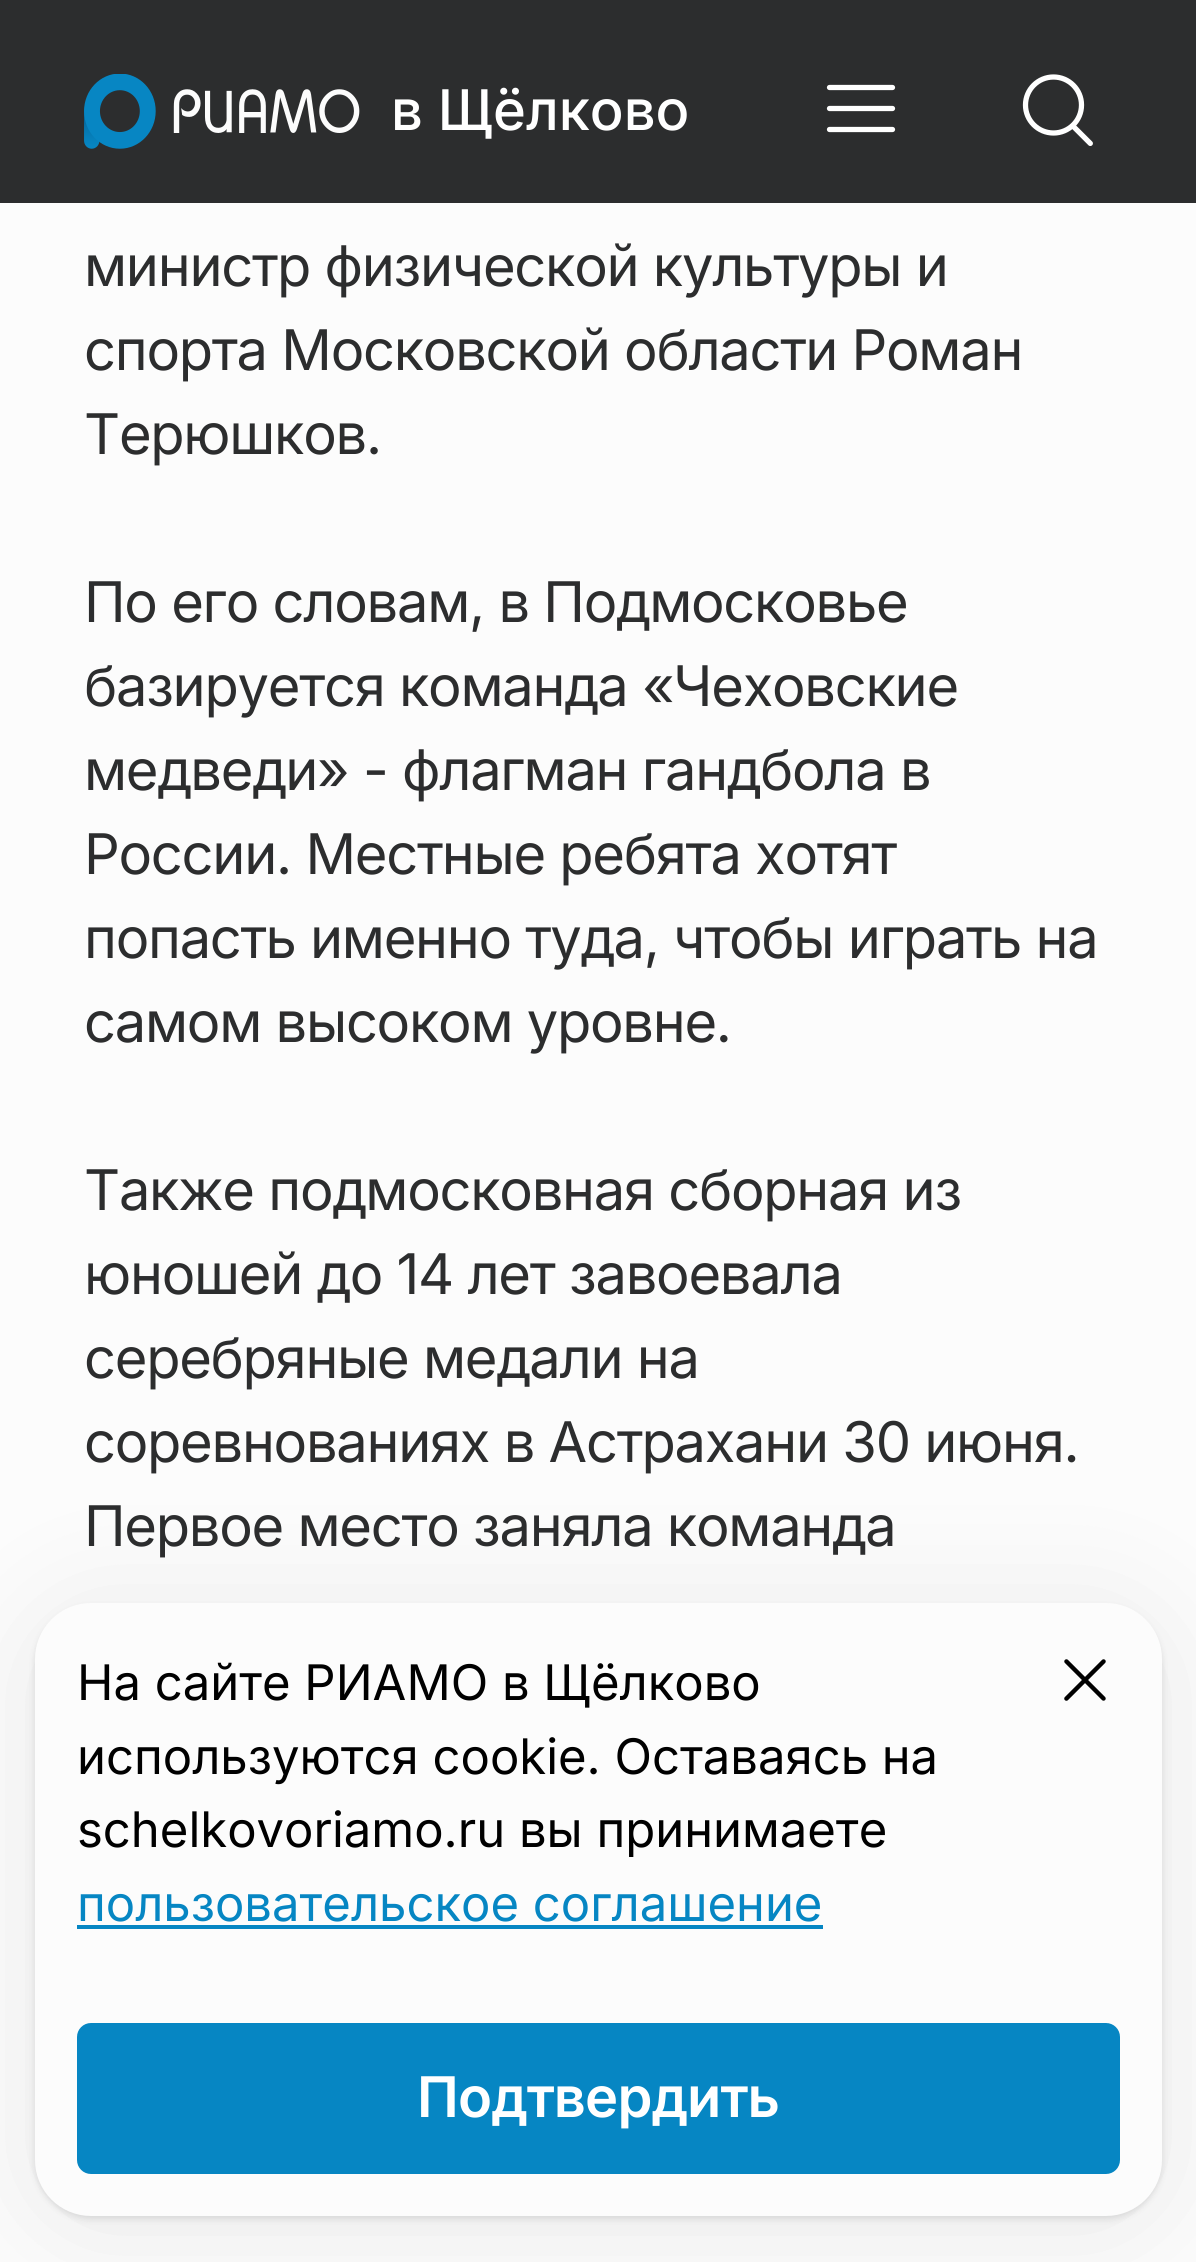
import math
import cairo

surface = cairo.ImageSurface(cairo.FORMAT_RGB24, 1196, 2262)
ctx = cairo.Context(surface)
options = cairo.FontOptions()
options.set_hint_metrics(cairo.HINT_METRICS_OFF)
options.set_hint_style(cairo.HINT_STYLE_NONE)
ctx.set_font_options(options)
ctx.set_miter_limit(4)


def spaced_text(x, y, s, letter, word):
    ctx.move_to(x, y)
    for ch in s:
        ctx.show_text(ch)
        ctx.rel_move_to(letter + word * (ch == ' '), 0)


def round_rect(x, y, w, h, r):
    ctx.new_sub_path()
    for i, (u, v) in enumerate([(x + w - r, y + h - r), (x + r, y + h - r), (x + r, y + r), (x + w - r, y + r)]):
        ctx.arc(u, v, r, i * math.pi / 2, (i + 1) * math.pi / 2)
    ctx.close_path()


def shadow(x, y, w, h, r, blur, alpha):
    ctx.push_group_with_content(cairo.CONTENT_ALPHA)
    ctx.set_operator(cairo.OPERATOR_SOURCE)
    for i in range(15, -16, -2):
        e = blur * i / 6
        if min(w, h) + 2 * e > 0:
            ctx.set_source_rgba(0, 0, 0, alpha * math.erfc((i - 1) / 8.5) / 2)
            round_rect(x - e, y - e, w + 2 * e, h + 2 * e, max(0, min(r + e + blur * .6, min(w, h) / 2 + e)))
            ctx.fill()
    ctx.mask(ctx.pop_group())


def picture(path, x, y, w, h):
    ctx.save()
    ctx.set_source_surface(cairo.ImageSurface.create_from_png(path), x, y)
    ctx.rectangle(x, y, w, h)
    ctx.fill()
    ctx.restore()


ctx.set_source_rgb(0.988, 0.988, 0.988)
ctx.paint()
ctx.set_source_rgb(0.173, 0.176, 0.18)
ctx.rectangle(0, 0, 1196, 203)
ctx.fill()
picture("img1.png", 84, 74, 276, 75)
ctx.select_font_face("Inter Medium")
ctx.set_font_size(56)
ctx.set_source_rgb(1, 1, 1)
ctx.move_to(391, 130)
ctx.show_text("в Щёлково")
picture("img2.png", 826, 84, 70, 49)
picture("img3.png", 1022, 74, 71, 72)
ctx.select_font_face("Inter")
ctx.set_source_rgb(0.173, 0.176, 0.18)
spaced_text(84, 286, "министр физической культуры и", -1.25, 0)
spaced_text(84, 370, "спорта Московской области Роман", -1.25, 0)
spaced_text(84, 454, "Терюшков.", -1.25, 0)
spaced_text(84, 622, "По его словам, в Подмосковье", -1.25, 0)
spaced_text(84, 706, "базируется команда «Чеховские", -1.25, 0)
spaced_text(84, 790, "медведи» - флагман гандбола в", -1.25, 0)
spaced_text(84, 874, "России. Местные ребята хотят", -1.25, 0)
spaced_text(84, 958, "попасть именно туда, чтобы играть на", -1.25, 0)
spaced_text(84, 1042, "самом высоком уровне.", -1.25, 0)
spaced_text(84, 1210, "Также подмосковная сборная из", -1.25, 0)
spaced_text(84, 1294, "юношей до 14 лет завоевала", -1.25, 0)
spaced_text(84, 1378, "серебряные медали на", -1.25, 0)
spaced_text(84, 1462, "соревнованиях в Астрахани 30 июня.", -1.25, 0)
spaced_text(84, 1546, "Первое место заняла команда", -1.25, 0)
ctx.set_source_rgb(0.173, 0.176, 0.18)
shadow(35, 1607, 1127, 612, 56, 3.5, 0.14)
shadow(35, 1614, 1127, 612, 56, 59.5, 0.1)
ctx.set_source_rgb(0.988, 0.988, 0.988)
round_rect(35, 1603, 1127, 613, 56)
ctx.fill()
ctx.set_font_size(49)
ctx.set_source_rgb(0, 0, 0)
ctx.move_to(77, 1700)
ctx.show_text("На сайте РИАМО в Щёлково")
ctx.move_to(77, 1774)
ctx.show_text("используются cookie. Оставаясь на")
ctx.move_to(77, 1847)
ctx.show_text("schelkovoriamo.ru вы принимаете")
ctx.set_source_rgb(0.027, 0.525, 0.765)
ctx.move_to(77, 1921)
ctx.show_text("пользовательское соглашение")
ctx.rectangle(77, 1925, 746, 4)
ctx.fill()
picture("img4.png", 1064, 1659, 42, 42)
round_rect(77, 2023, 1043, 151, 14)
ctx.fill()
ctx.select_font_face("Inter SemiBold")
ctx.set_font_size(56)
ctx.set_source_rgb(1, 1, 1)
spaced_text(417, 2117, "Подтвердить", -0.75, 0)
surface.write_to_png("page.png")
